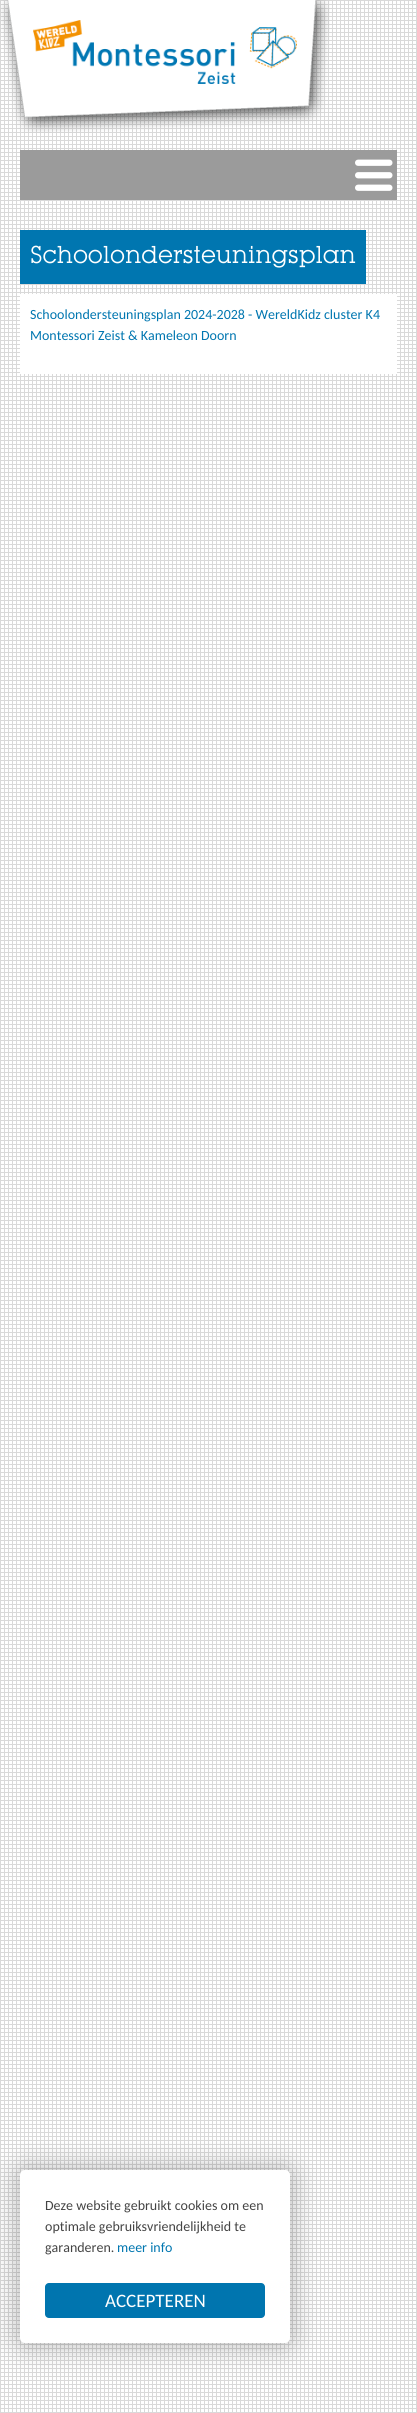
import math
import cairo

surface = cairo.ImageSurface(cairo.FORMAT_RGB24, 417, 2413)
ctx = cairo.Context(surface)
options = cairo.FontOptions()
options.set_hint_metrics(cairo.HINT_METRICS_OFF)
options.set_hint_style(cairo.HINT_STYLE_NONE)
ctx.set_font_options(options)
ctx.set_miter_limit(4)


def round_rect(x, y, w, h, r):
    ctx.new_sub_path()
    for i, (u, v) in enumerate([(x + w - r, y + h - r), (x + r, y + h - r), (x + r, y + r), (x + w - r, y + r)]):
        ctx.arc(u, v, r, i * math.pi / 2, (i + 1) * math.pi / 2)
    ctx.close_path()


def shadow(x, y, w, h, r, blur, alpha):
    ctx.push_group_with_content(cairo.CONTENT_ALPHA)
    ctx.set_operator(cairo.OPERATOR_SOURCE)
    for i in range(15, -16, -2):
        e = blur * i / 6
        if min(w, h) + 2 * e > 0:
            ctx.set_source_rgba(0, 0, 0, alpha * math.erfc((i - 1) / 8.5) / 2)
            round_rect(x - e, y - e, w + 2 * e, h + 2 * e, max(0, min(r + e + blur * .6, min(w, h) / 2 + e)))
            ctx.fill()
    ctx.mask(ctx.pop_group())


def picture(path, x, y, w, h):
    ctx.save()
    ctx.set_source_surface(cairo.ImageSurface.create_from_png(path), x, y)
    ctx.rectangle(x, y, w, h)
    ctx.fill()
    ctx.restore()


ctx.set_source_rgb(1, 1, 1)
ctx.paint()
picture("img1.png", 0, 0, 417, 2413)
picture("img2.png", 0, 0, 330, 133)
picture("img3.png", 33, 20, 264, 64)
ctx.set_source_rgb(0.608, 0.608, 0.608)
ctx.rectangle(20, 150, 377, 50)
ctx.fill()
picture("img4.png", 355, 159, 38, 32)
ctx.set_source_rgb(0, 0.463, 0.69)
ctx.rectangle(20, 230, 346, 54)
ctx.fill()
ctx.select_font_face("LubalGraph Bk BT")
ctx.set_font_size(24)
ctx.set_source_rgb(1, 1, 1)
ctx.move_to(30, 263)
ctx.show_text("Schoolondersteuningsplan")
ctx.rectangle(20, 294, 377, 80)
ctx.fill()
ctx.select_font_face("Carlito")
ctx.set_font_size(14)
ctx.set_source_rgb(0, 0.463, 0.69)
ctx.move_to(30, 319)
ctx.show_text("Schoolondersteuningsplan 2024-2028 - WereldKidz cluster K4")
ctx.move_to(30, 340)
ctx.show_text("Montessori Zeist & Kameleon Doorn")
ctx.set_source_rgb(0, 0, 0)
shadow(20, 2170, 270, 173, 5, 15, 0.3)
ctx.set_source_rgb(1, 1, 1)
round_rect(20, 2170, 270, 173, 5)
ctx.fill()
ctx.set_source_rgb(0.267, 0.267, 0.267)
ctx.move_to(45, 2210)
ctx.show_text("Deze website gebruikt cookies om een")
ctx.move_to(45, 2231)
ctx.show_text("optimale gebruiksvriendelijkheid te")
ctx.move_to(45, 2252)
ctx.show_text("garanderen.")
ctx.set_source_rgb(0, 0.463, 0.69)
ctx.move_to(117, 2252)
ctx.show_text("meer info")
ctx.set_source_rgb(0, 0.459, 0.686)
round_rect(45, 2283, 220, 35, 4)
ctx.fill()
ctx.set_font_size(19)
ctx.set_source_rgb(1, 1, 1)
ctx.move_to(105, 2307)
ctx.show_text("ACCEPTEREN")
surface.write_to_png("page.png")
